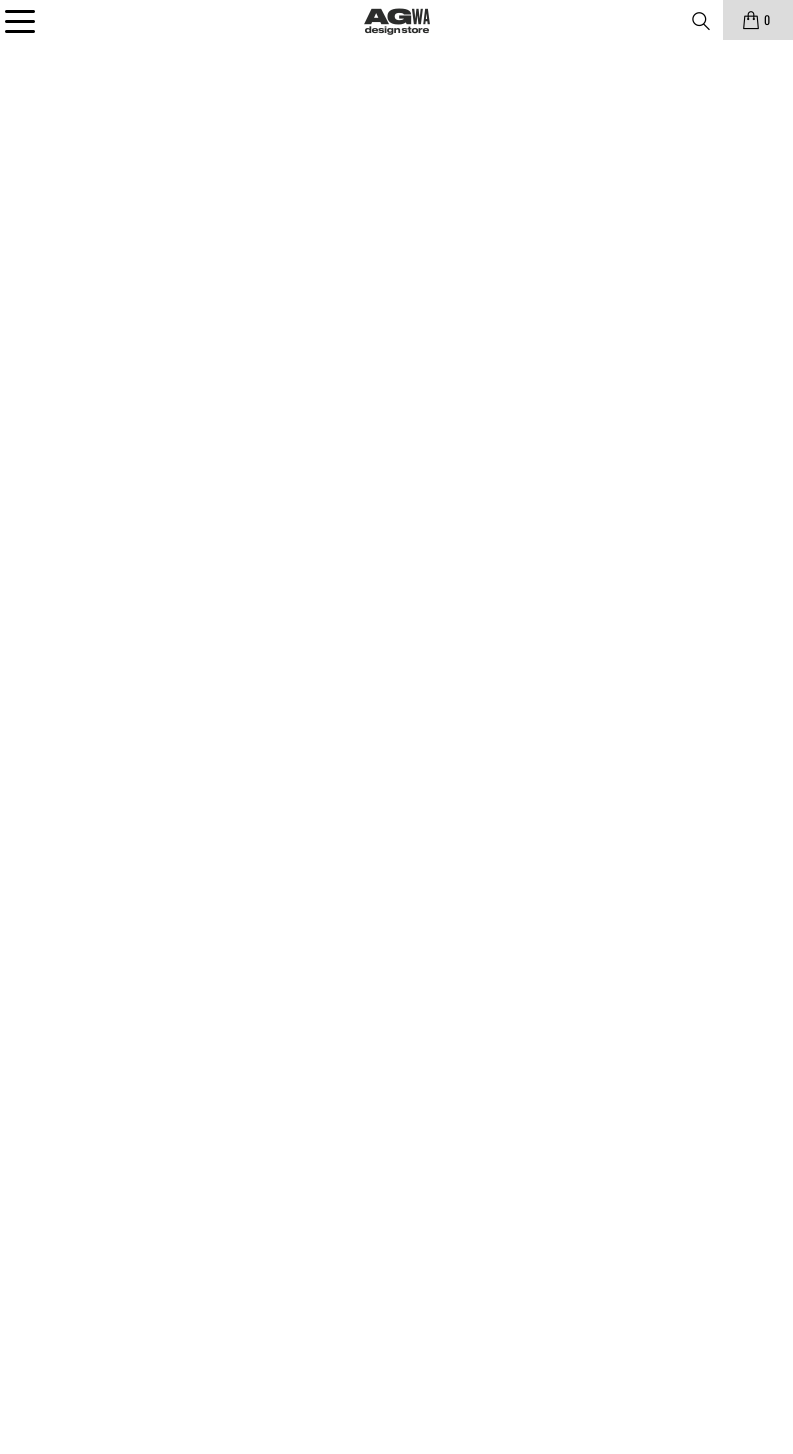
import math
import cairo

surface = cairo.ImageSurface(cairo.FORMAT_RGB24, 793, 1454)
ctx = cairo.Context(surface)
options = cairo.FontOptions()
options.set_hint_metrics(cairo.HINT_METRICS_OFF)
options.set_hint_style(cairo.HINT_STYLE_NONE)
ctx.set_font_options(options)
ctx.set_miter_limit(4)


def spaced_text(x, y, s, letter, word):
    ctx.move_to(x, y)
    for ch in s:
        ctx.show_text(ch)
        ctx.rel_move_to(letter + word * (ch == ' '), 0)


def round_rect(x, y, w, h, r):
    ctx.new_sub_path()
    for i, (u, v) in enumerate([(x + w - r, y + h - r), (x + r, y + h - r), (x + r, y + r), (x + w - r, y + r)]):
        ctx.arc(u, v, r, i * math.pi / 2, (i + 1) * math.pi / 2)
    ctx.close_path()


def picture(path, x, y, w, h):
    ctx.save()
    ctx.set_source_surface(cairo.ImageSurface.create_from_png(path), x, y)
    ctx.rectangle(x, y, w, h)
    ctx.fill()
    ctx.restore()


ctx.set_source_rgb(1, 1, 1)
ctx.paint()
ctx.set_source_rgb(0, 0, 0)
round_rect(5, 10, 30, 3, 1.5)
ctx.fill()
round_rect(5, 20, 30, 3, 1.5)
ctx.fill()
round_rect(5, 30, 30, 3, 1.5)
ctx.fill()
picture("img1.png", 364, 8, 66, 27)
picture("img2.png", 692, 12, 18, 19)
ctx.set_source_rgb(0.863, 0.863, 0.863)
ctx.rectangle(723, 0, 70, 40)
ctx.fill()
picture("img3.png", 743, 11, 16, 19)
ctx.select_font_face("Oswald")
ctx.set_font_size(12)
ctx.set_source_rgb(0, 0, 0)
spaced_text(764, 25, "0", 1, 0)
surface.write_to_png("page.png")
